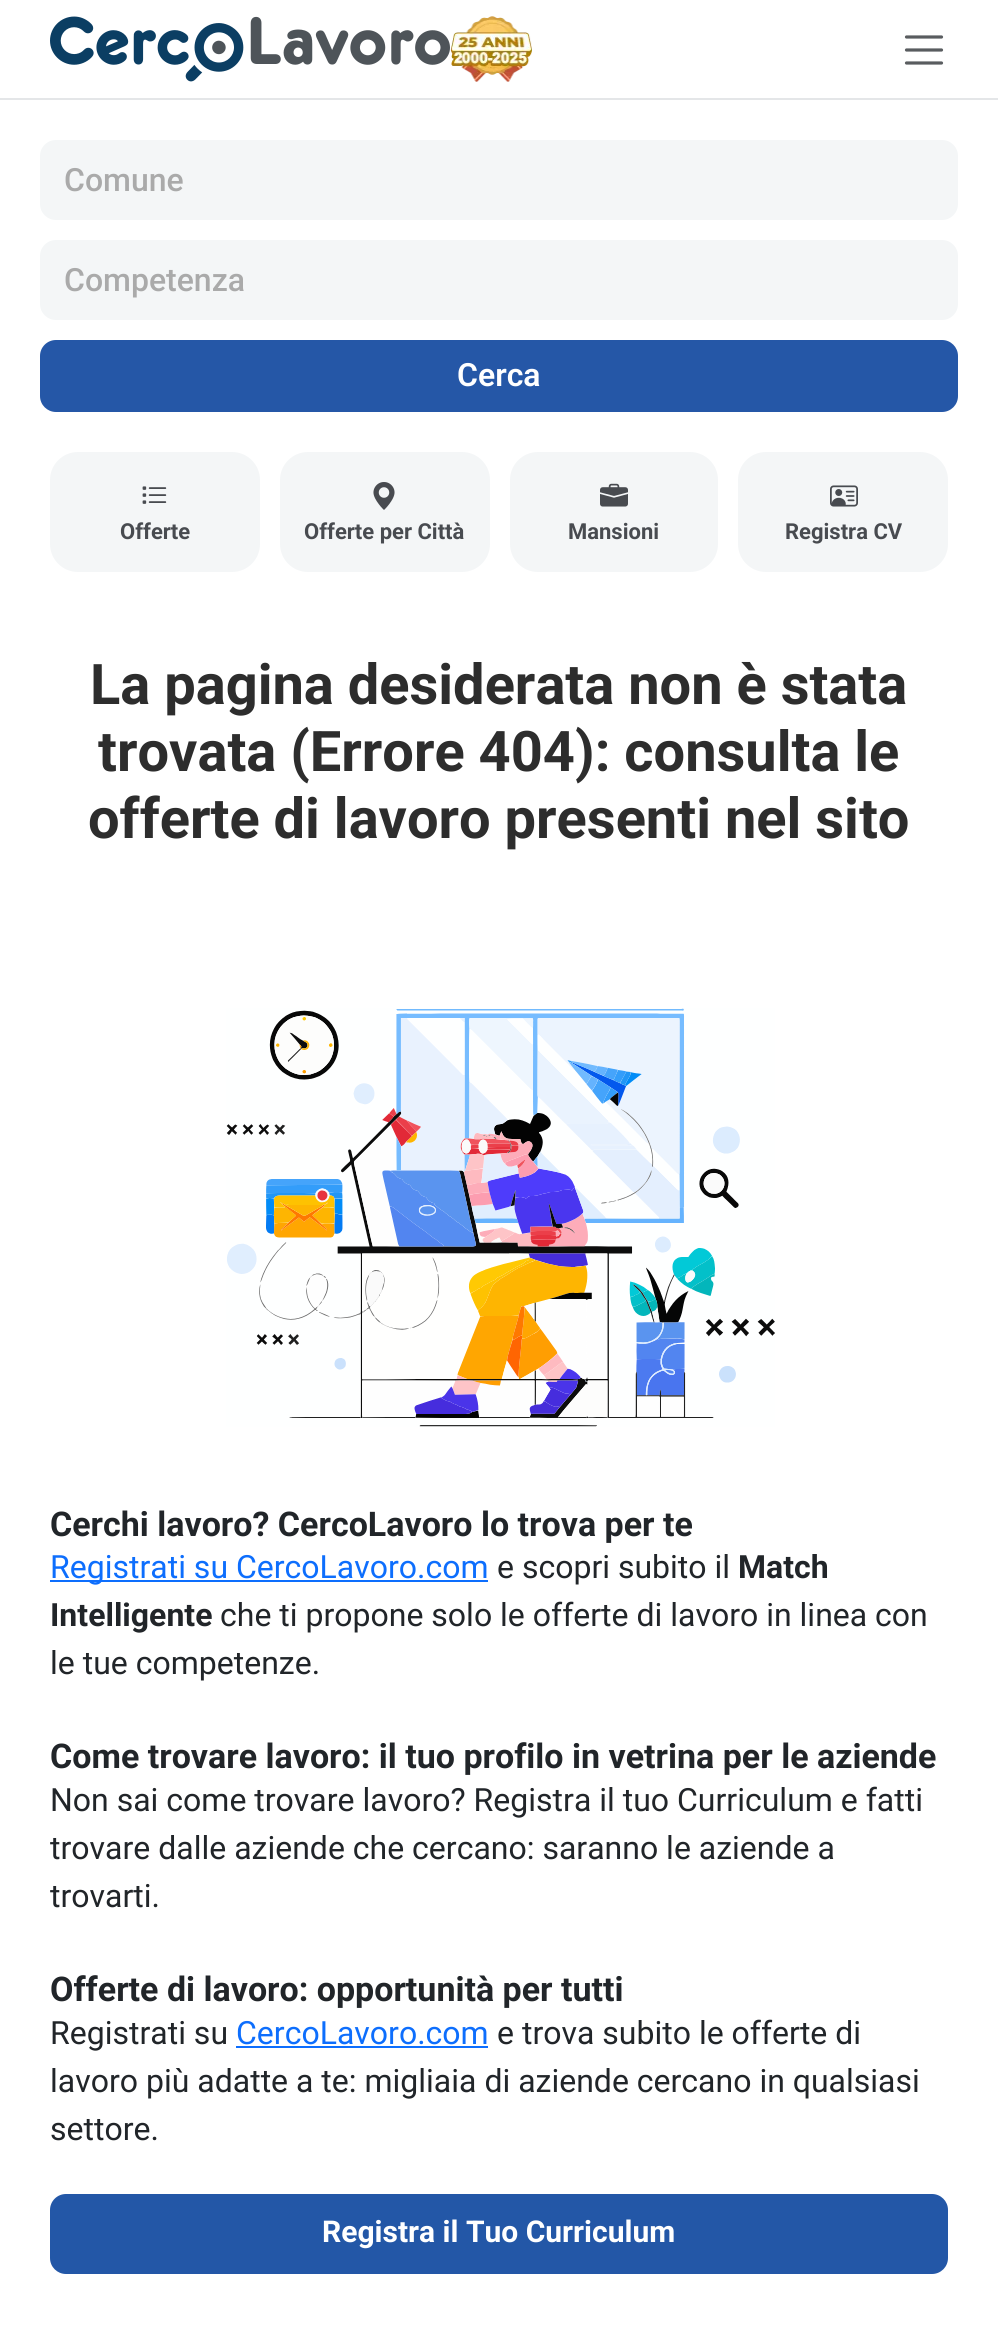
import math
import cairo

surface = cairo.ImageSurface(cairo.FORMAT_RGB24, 998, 2345)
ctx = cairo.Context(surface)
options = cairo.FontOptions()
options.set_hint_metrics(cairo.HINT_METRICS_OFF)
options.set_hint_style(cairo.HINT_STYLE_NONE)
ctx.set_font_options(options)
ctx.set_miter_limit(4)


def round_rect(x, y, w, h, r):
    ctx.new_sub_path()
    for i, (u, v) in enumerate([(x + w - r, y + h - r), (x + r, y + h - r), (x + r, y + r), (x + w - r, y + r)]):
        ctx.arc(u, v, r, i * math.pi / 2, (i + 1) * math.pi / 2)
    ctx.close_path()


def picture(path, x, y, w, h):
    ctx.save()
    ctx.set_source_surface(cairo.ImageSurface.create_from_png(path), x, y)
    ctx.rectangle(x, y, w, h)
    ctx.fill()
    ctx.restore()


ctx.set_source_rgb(1, 1, 1)
ctx.paint()
ctx.set_source_rgb(0.894, 0.902, 0.91)
ctx.rectangle(0, 98, 998, 2)
ctx.fill()
picture("img1.png", 50, 16, 400, 66)
picture("img2.png", 450, 16, 82, 66)
ctx.new_path()
ctx.move_to(906.5, 37)
ctx.line_to(941.5, 37)
ctx.move_to(906.5, 50)
ctx.line_to(941.5, 50)
ctx.move_to(906.5, 63)
ctx.line_to(941.5, 63)
ctx.set_source_rgb(0.349, 0.361, 0.373)
ctx.set_line_width(3.2)
ctx.set_line_cap(cairo.LINE_CAP_ROUND)
ctx.stroke()
ctx.set_source_rgb(0.957, 0.961, 0.965)
round_rect(40, 140, 918, 80, 16)
ctx.fill()
ctx.select_font_face("Roboto Medium")
ctx.set_font_size(32)
ctx.set_source_rgb(0.667, 0.667, 0.667)
ctx.move_to(64, 191)
ctx.show_text("Comune")
ctx.set_source_rgb(0.957, 0.961, 0.965)
round_rect(40, 240, 918, 80, 16)
ctx.fill()
ctx.set_source_rgb(0.667, 0.667, 0.667)
ctx.move_to(64, 291)
ctx.show_text("Competenza")
ctx.set_source_rgb(0.145, 0.341, 0.655)
round_rect(40, 340, 918, 72, 16)
ctx.fill()
ctx.select_font_face("Roboto SemiBold")
ctx.set_source_rgb(1, 1, 1)
ctx.move_to(457, 386)
ctx.show_text("Cerca")
ctx.set_source_rgb(0.957, 0.961, 0.965)
round_rect(50, 452, 210, 120, 28)
ctx.fill()
picture("img3.png", 142, 486, 25, 18)
ctx.select_font_face("Roboto", cairo.FONT_SLANT_NORMAL, cairo.FONT_WEIGHT_BOLD)
ctx.set_font_size(22)
ctx.set_source_rgb(0.282, 0.294, 0.314)
ctx.move_to(120, 539)
ctx.show_text("Offerte")
ctx.set_source_rgb(0.957, 0.961, 0.965)
round_rect(280, 452, 210, 120, 28)
ctx.fill()
picture("img4.png", 373, 482, 22, 28)
ctx.set_source_rgb(0.282, 0.294, 0.314)
ctx.move_to(304, 539)
ctx.show_text("Offerte per Città")
ctx.set_source_rgb(0.957, 0.961, 0.965)
round_rect(510, 452, 208, 120, 28)
ctx.fill()
picture("img5.png", 600, 483, 28, 24)
ctx.set_source_rgb(0.282, 0.294, 0.314)
ctx.move_to(568, 539)
ctx.show_text("Mansioni")
ctx.set_source_rgb(0.957, 0.961, 0.965)
round_rect(738, 452, 210, 120, 28)
ctx.fill()
picture("img6.png", 830, 485, 28, 22)
ctx.set_source_rgb(0.282, 0.294, 0.314)
ctx.move_to(785, 539)
ctx.show_text("Registra CV")
ctx.set_font_size(56)
ctx.set_source_rgb(0.176, 0.176, 0.176)
ctx.move_to(90, 704)
ctx.show_text("La pagina desiderata non è stata")
ctx.move_to(98, 771)
ctx.show_text("trovata (Errore 404): consulta le")
ctx.move_to(88, 838)
ctx.show_text("offerte di lavoro presenti nel sito")
picture("img7.png", 226, 1008, 549, 419)
ctx.set_font_size(34)
ctx.set_source_rgb(0.129, 0.145, 0.161)
ctx.move_to(50, 1536)
ctx.show_text("Cerchi lavoro? CercoLavoro lo trova per te")
ctx.set_source_rgb(0.051, 0.431, 0.992)
ctx.rectangle(50, 1580, 438, 2)
ctx.fill()
ctx.select_font_face("Roboto")
ctx.set_font_size(32)
ctx.move_to(50, 1578)
ctx.show_text("Registrati su CercoLavoro.com")
ctx.set_source_rgb(0.129, 0.145, 0.161)
ctx.move_to(497, 1578)
ctx.show_text("e scopri subito il")
ctx.select_font_face("Roboto", cairo.FONT_SLANT_NORMAL, cairo.FONT_WEIGHT_BOLD)
ctx.move_to(738, 1578)
ctx.show_text("Match")
ctx.move_to(50, 1626)
ctx.show_text("Intelligente")
ctx.select_font_face("Roboto")
ctx.move_to(220, 1626)
ctx.show_text("che ti propone solo le offerte di lavoro in linea con")
ctx.move_to(50, 1674)
ctx.show_text("le tue competenze.")
ctx.select_font_face("Roboto", cairo.FONT_SLANT_NORMAL, cairo.FONT_WEIGHT_BOLD)
ctx.set_font_size(34)
ctx.move_to(50, 1768)
ctx.show_text("Come trovare lavoro: il tuo profilo in vetrina per le aziende")
ctx.select_font_face("Roboto")
ctx.set_font_size(32)
ctx.move_to(50, 1811)
ctx.show_text("Non sai come trovare lavoro? Registra il tuo Curriculum e fatti")
ctx.move_to(50, 1859)
ctx.show_text("trovare dalle aziende che cercano: saranno le aziende a")
ctx.move_to(50, 1907)
ctx.show_text("trovarti.")
ctx.select_font_face("Roboto", cairo.FONT_SLANT_NORMAL, cairo.FONT_WEIGHT_BOLD)
ctx.set_font_size(34)
ctx.move_to(50, 2001)
ctx.show_text("Offerte di lavoro: opportunità per tutti")
ctx.select_font_face("Roboto")
ctx.set_font_size(32)
ctx.move_to(50, 2044)
ctx.show_text("Registrati su")
ctx.set_source_rgb(0.051, 0.431, 0.992)
ctx.move_to(236, 2044)
ctx.show_text("CercoLavoro.com")
ctx.rectangle(236, 2046, 252, 2)
ctx.fill()
ctx.set_source_rgb(0.129, 0.145, 0.161)
ctx.move_to(497, 2044)
ctx.show_text("e trova subito le offerte di")
ctx.move_to(50, 2092)
ctx.show_text("lavoro più adatte a te: migliaia di aziende cercano in qualsiasi")
ctx.move_to(50, 2140)
ctx.show_text("settore.")
ctx.set_source_rgb(0.137, 0.341, 0.655)
round_rect(50, 2194, 898, 80, 16)
ctx.fill()
ctx.select_font_face("Roboto", cairo.FONT_SLANT_NORMAL, cairo.FONT_WEIGHT_BOLD)
ctx.set_font_size(30)
ctx.set_source_rgb(1, 1, 1)
ctx.move_to(322, 2242)
ctx.show_text("Registra il Tuo Curriculum")
surface.write_to_png("page.png")
